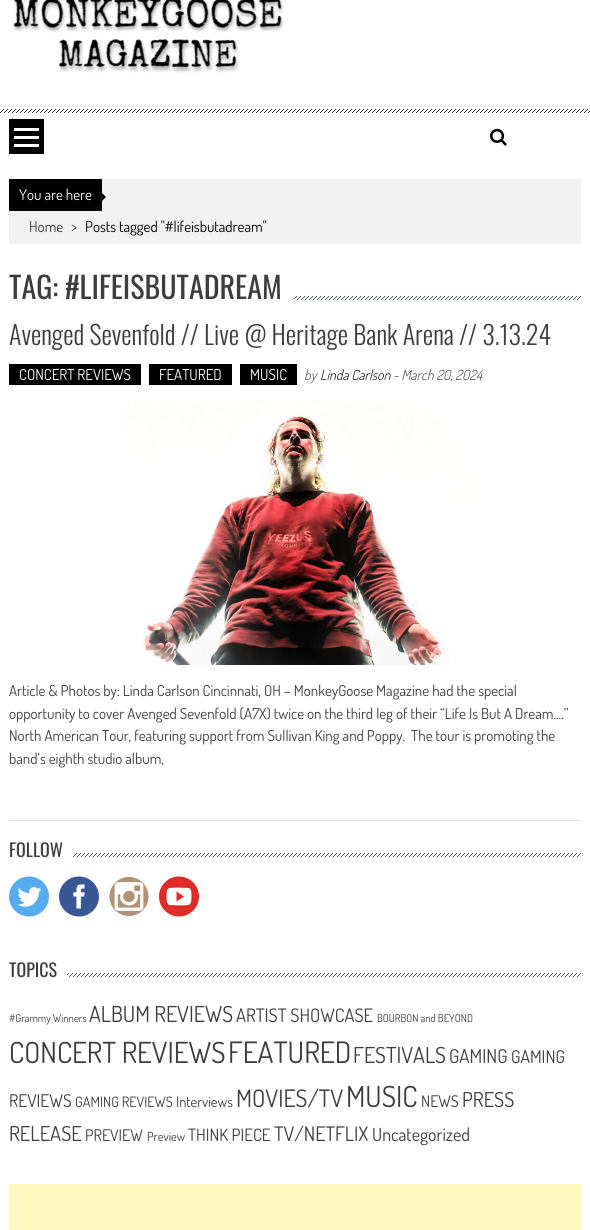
import math
import cairo

surface = cairo.ImageSurface(cairo.FORMAT_RGB24, 590, 1230)
ctx = cairo.Context(surface)
options = cairo.FontOptions()
options.set_hint_metrics(cairo.HINT_METRICS_OFF)
options.set_hint_style(cairo.HINT_STYLE_NONE)
ctx.set_font_options(options)
ctx.set_miter_limit(4)


def picture(path, x, y, w, h):
    ctx.save()
    ctx.set_source_surface(cairo.ImageSurface.create_from_png(path), x, y)
    ctx.rectangle(x, y, w, h)
    ctx.fill()
    ctx.restore()


ctx.set_source_rgb(1, 1, 1)
ctx.paint()
picture("img1.png", 0, 109, 590, 4)
picture("img2.png", 13, 0, 271, 73)
ctx.set_source_rgb(0, 0, 0)
ctx.rectangle(9, 119, 35, 35)
ctx.fill()
ctx.set_source_rgb(1, 1, 1)
ctx.rectangle(14, 128, 25, 3)
ctx.fill()
ctx.rectangle(14, 136, 25, 3)
ctx.fill()
ctx.rectangle(14, 144, 25, 3)
ctx.fill()
picture("img3.png", 490, 128, 17, 18)
ctx.set_source_rgb(0.945, 0.945, 0.945)
ctx.rectangle(9, 179, 572, 65)
ctx.fill()
ctx.set_source_rgb(0, 0, 0)
ctx.rectangle(9, 179, 93, 32)
ctx.fill()
ctx.select_font_face("Dosis")
ctx.set_font_size(15)
ctx.set_source_rgb(1, 1, 1)
ctx.move_to(19, 200)
ctx.show_text("You are here")
ctx.set_source_rgb(0, 0, 0)
ctx.new_path()
ctx.move_to(101, 202)
ctx.line_to(101, 192)
ctx.line_to(106, 197)
ctx.close_path()
ctx.fill()
ctx.set_source_rgb(0.239, 0.239, 0.239)
ctx.move_to(29, 232)
ctx.show_text("Home")
ctx.move_to(71, 232)
ctx.show_text(">")
ctx.set_source_rgb(0, 0, 0)
ctx.move_to(85, 232)
ctx.show_text("Posts tagged \"#lifeisbutadream\"")
picture("img4.png", 294, 296, 287, 4)
ctx.select_font_face("Oswald")
ctx.set_font_size(30)
ctx.set_source_rgb(0.239, 0.239, 0.239)
ctx.move_to(9, 299)
ctx.show_text("TAG: #LIFEISBUTADREAM")
ctx.set_source_rgb(0.867, 0.867, 0.867)
ctx.rectangle(9, 820, 572, 1)
ctx.fill()
ctx.select_font_face("Oswald Light")
ctx.set_font_size(26)
ctx.set_source_rgb(0.239, 0.239, 0.239)
ctx.move_to(9, 345)
ctx.show_text("Avenged Sevenfold // Live @ Heritage Bank Arena // 3.13.24")
ctx.set_source_rgb(0, 0, 0)
ctx.rectangle(9, 364, 132, 21)
ctx.fill()
ctx.select_font_face("Dosis")
ctx.set_font_size(15)
ctx.set_source_rgb(1, 1, 1)
ctx.move_to(19, 380)
ctx.show_text("CONCERT REVIEWS")
ctx.set_source_rgb(0, 0, 0)
ctx.rectangle(149, 364, 83, 21)
ctx.fill()
ctx.set_source_rgb(1, 1, 1)
ctx.move_to(159, 380)
ctx.show_text("FEATURED")
ctx.set_source_rgb(0, 0, 0)
ctx.rectangle(240, 364, 57, 21)
ctx.fill()
ctx.set_source_rgb(1, 1, 1)
ctx.move_to(250, 380)
ctx.show_text("MUSIC")
ctx.select_font_face("Dosis Light", cairo.FONT_SLANT_ITALIC)
ctx.set_font_size(14)
ctx.set_source_rgb(0.239, 0.239, 0.239)
ctx.move_to(304, 380)
ctx.show_text("by")
ctx.set_source_rgb(0, 0, 0)
ctx.move_to(320, 380)
ctx.show_text("Linda Carlson")
ctx.set_source_rgb(0.239, 0.239, 0.239)
ctx.move_to(393, 380)
ctx.show_text("- March 20, 2024")
picture("img5.png", 125, 401, 354, 264)
ctx.select_font_face("Dosis")
ctx.set_font_size(15)
ctx.move_to(9, 696)
ctx.show_text("Article & Photos by: Linda Carlson Cincinnati, OH – MonkeyGoose Magazine had the special")
ctx.move_to(9, 719)
ctx.show_text("opportunity to cover Avenged Sevenfold (A7X) twice on the third leg of their “Life Is But A Dream....”")
ctx.move_to(9, 741)
ctx.show_text("North American Tour, featuring support from Sullivan King and Poppy.  The tour is promoting the")
ctx.move_to(9, 764)
ctx.show_text("band’s eighth studio album,")
picture("img6.png", 73, 853, 508, 4)
ctx.select_font_face("Oswald")
ctx.set_font_size(18)
ctx.move_to(9, 857)
ctx.show_text("FOLLOW")
picture("img7.png", 9, 876, 40, 41)
picture("img8.png", 59, 876, 40, 41)
picture("img9.png", 109, 877, 40, 39)
picture("img10.png", 159, 876, 40, 41)
picture("img11.png", 67, 973, 514, 4)
ctx.move_to(9, 977)
ctx.show_text("TOPICS")
ctx.select_font_face("Dosis")
ctx.set_font_size(10.75)
ctx.move_to(9, 1022)
ctx.show_text("#Grammy Winners")
ctx.set_font_size(22)
ctx.move_to(89, 1022)
ctx.show_text("ALBUM REVIEWS")
ctx.set_font_size(18.5)
ctx.move_to(236, 1022)
ctx.show_text("ARTIST SHOWCASE")
ctx.set_font_size(10.75)
ctx.move_to(377, 1022)
ctx.show_text("BOURBON and BEYOND")
ctx.set_font_size(29)
ctx.move_to(9, 1063)
ctx.show_text("CONCERT REVIEWS")
ctx.set_font_size(29.5)
ctx.move_to(228, 1063)
ctx.show_text("FEATURED")
ctx.set_font_size(22)
ctx.move_to(353, 1063)
ctx.show_text("FESTIVALS")
ctx.set_font_size(19)
ctx.move_to(449, 1063)
ctx.show_text("GAMING")
ctx.set_font_size(17.5)
ctx.move_to(511, 1063)
ctx.show_text("GAMING")
ctx.move_to(9, 1107)
ctx.show_text("REVIEWS")
ctx.set_font_size(14.25)
ctx.move_to(75, 1107)
ctx.show_text("GAMING REVIEWS")
ctx.set_font_size(14.5)
ctx.move_to(176, 1107)
ctx.show_text("Interviews")
ctx.set_font_size(24)
ctx.move_to(236, 1107)
ctx.show_text("MOVIES/TV")
ctx.set_font_size(29)
ctx.move_to(346, 1107)
ctx.show_text("MUSIC")
ctx.set_font_size(16)
ctx.move_to(421, 1107)
ctx.show_text("NEWS")
ctx.set_font_size(20.5)
ctx.move_to(462, 1107)
ctx.show_text("PRESS")
ctx.move_to(9, 1141)
ctx.show_text("RELEASE")
ctx.set_font_size(16)
ctx.move_to(85, 1141)
ctx.show_text("PREVIEW")
ctx.set_font_size(12.5)
ctx.move_to(147, 1141)
ctx.show_text("Preview")
ctx.set_font_size(17)
ctx.move_to(188, 1141)
ctx.show_text("THINK PIECE")
ctx.set_font_size(20)
ctx.move_to(274, 1141)
ctx.show_text("TV/NETFLIX")
ctx.set_font_size(18)
ctx.move_to(372, 1141)
ctx.show_text("Uncategorized")
ctx.set_source_rgb(1, 0.976, 0.753)
ctx.rectangle(9, 1184, 572, 46)
ctx.fill()
surface.write_to_png("page.png")
